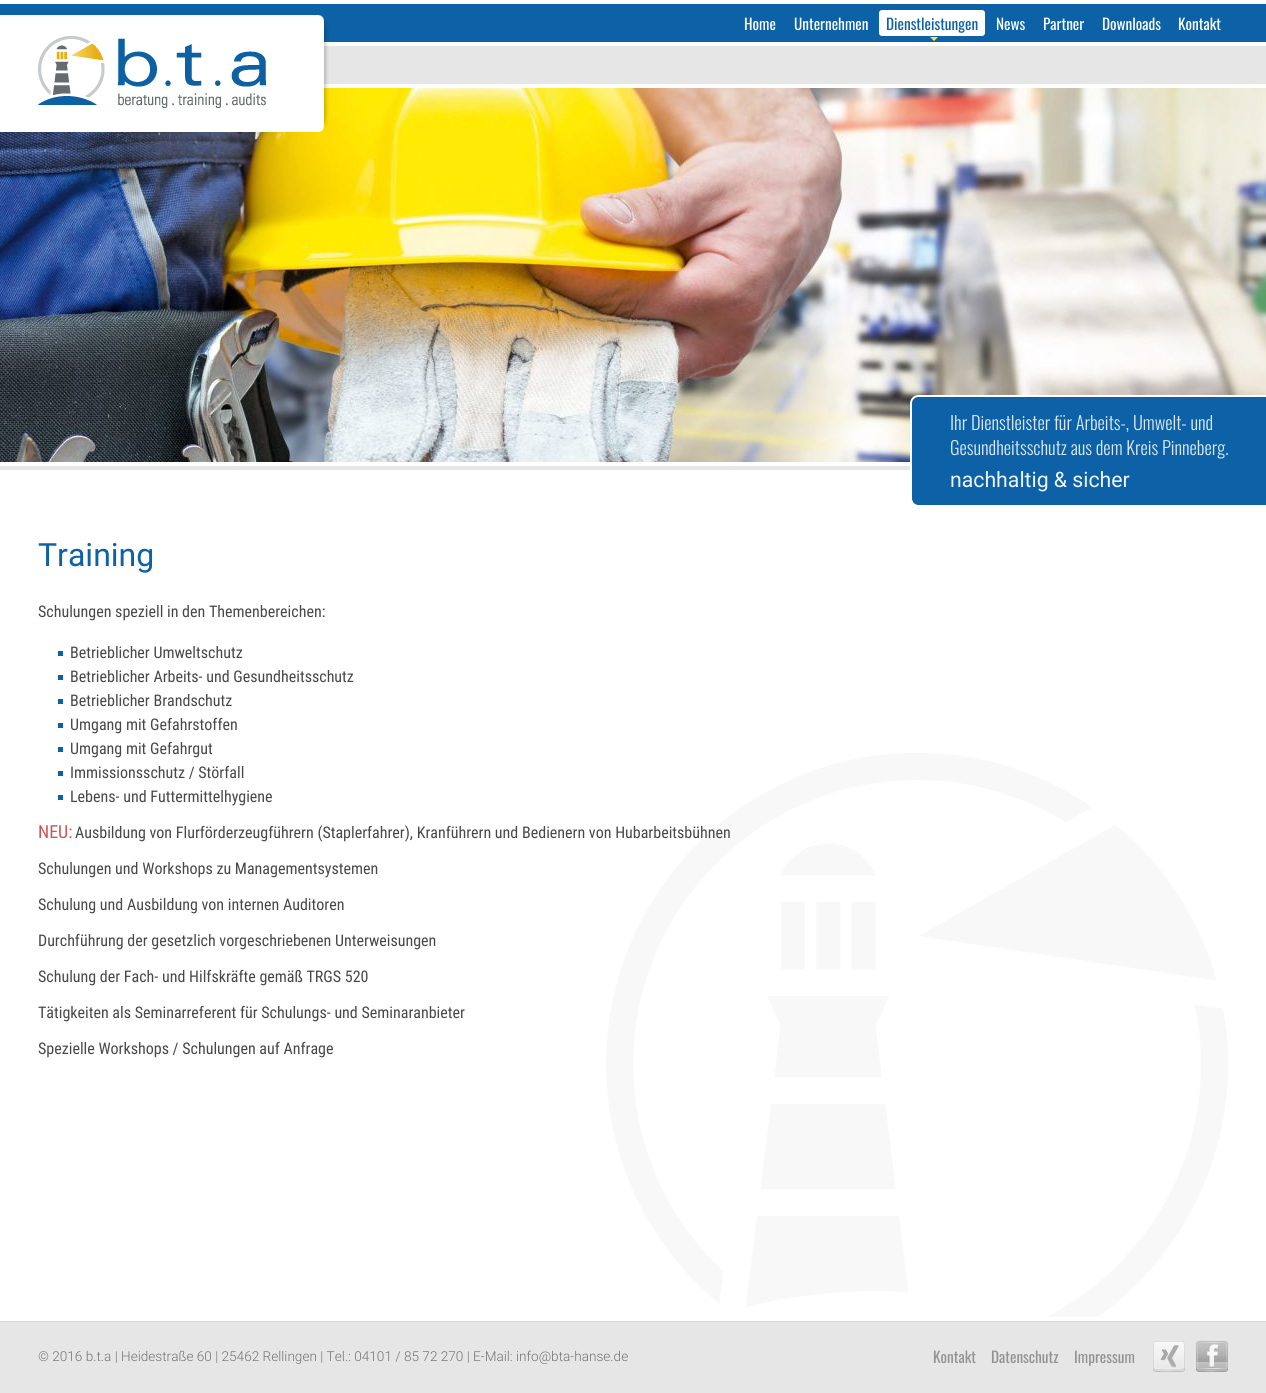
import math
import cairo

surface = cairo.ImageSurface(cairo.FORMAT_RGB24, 1266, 1393)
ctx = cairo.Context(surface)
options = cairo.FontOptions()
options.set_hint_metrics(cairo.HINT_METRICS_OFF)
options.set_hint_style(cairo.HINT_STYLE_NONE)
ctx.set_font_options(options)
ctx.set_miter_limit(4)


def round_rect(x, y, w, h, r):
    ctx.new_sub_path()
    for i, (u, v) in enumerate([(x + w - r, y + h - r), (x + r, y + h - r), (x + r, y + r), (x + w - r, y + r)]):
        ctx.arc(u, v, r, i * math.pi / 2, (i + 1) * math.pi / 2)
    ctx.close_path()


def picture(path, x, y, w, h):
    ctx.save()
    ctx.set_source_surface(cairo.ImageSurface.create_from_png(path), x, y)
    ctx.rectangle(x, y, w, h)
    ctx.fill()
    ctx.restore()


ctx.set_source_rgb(1, 1, 1)
ctx.paint()
picture("img1.png", 606, 753, 622, 564)
picture("img2.png", 0, 4, 1266, 80)
ctx.set_source_rgb(0.902, 0.902, 0.902)
ctx.rectangle(0, 466, 910, 4)
ctx.fill()
picture("img4.png", 0, 88, 1266, 374)
ctx.set_source_rgb(1, 1, 1)
ctx.rectangle(0, 15, 38, 117)
ctx.fill()
picture("img3.png", 38, 15, 291, 117)
ctx.select_font_face("Oswald")
ctx.set_font_size(15.25)
ctx.move_to(744, 30)
ctx.show_text("Home")
ctx.move_to(794, 30)
ctx.show_text("Unternehmen")
round_rect(879, 10, 106, 26, 3)
ctx.fill()
ctx.set_source_rgb(0.051, 0.38, 0.651)
ctx.move_to(886, 30)
ctx.show_text("Dienstleistungen")
ctx.set_source_rgb(0.996, 0.902, 0.243)
ctx.new_path()
ctx.move_to(930, 37)
ctx.line_to(938, 37)
ctx.line_to(934, 41)
ctx.close_path()
ctx.fill()
ctx.set_source_rgb(1, 1, 1)
ctx.move_to(996, 30)
ctx.show_text("News")
ctx.move_to(1043, 30)
ctx.show_text("Partner")
ctx.move_to(1102, 30)
ctx.show_text("Downloads")
ctx.move_to(1178, 30)
ctx.show_text("Kontakt")
ctx.set_source_rgb(0.051, 0.38, 0.651)
ctx.new_path()
ctx.move_to(918, 397)
ctx.line_to(1228, 397)
ctx.line_to(1228, 505)
ctx.line_to(918, 505)
ctx.curve_to(914.5, 505, 912, 502.5, 912, 499)
ctx.line_to(912, 403)
ctx.curve_to(912, 399.5, 914.5, 397, 918, 397)
ctx.close_path()
ctx.fill()
ctx.set_source_rgb(1, 1, 1)
ctx.set_fill_rule(cairo.FILL_RULE_EVEN_ODD)
ctx.new_path()
ctx.move_to(918, 395)
ctx.line_to(1228, 395)
ctx.line_to(1228, 507)
ctx.line_to(918, 507)
ctx.curve_to(914, 507, 910, 503, 910, 499)
ctx.line_to(910, 403)
ctx.curve_to(910, 399, 914, 395, 918, 395)
ctx.close_path()
ctx.move_to(918, 397)
ctx.line_to(1228, 397)
ctx.line_to(1228, 505)
ctx.line_to(918, 505)
ctx.curve_to(915, 505, 912, 502, 912, 499)
ctx.line_to(912, 403)
ctx.curve_to(912, 400, 915, 397, 918, 397)
ctx.close_path()
ctx.fill()
ctx.select_font_face("Oswald Light")
ctx.set_font_size(18.4)
ctx.set_source_rgb(0.859, 0.91, 0.949)
ctx.move_to(950, 430)
ctx.show_text("Ihr Dienstleister für Arbeits-, Umwelt- und")
ctx.move_to(950, 455)
ctx.show_text("Gesundheitsschutz aus dem Kreis Pinneberg.")
ctx.select_font_face("Roboto")
ctx.set_font_size(21.25)
ctx.set_source_rgb(0.937, 0.957, 0.973)
ctx.move_to(950, 487)
ctx.show_text("nachhaltig & sicher")
ctx.set_source_rgb(0.051, 0.38, 0.651)
ctx.rectangle(1228, 397, 38, 108)
ctx.fill()
ctx.set_source_rgb(1, 1, 1)
ctx.rectangle(1228, 395, 38, 2)
ctx.fill()
ctx.set_font_size(32)
ctx.set_source_rgb(0.051, 0.38, 0.651)
ctx.move_to(38, 566)
ctx.show_text("Training")
ctx.select_font_face("Roboto Condensed")
ctx.set_font_size(16)
ctx.set_source_rgb(0.282, 0.282, 0.282)
ctx.move_to(38, 617)
ctx.show_text("Schulungen speziell in den Themenbereichen:")
ctx.set_source_rgb(0.051, 0.38, 0.651)
ctx.rectangle(58, 651, 5, 5)
ctx.fill()
ctx.set_source_rgb(0.282, 0.282, 0.282)
ctx.move_to(70, 658)
ctx.show_text("Betrieblicher Umweltschutz")
ctx.set_source_rgb(0.051, 0.38, 0.651)
ctx.rectangle(58, 675, 5, 5)
ctx.fill()
ctx.set_source_rgb(0.282, 0.282, 0.282)
ctx.move_to(70, 682)
ctx.show_text("Betrieblicher Arbeits- und Gesundheitsschutz")
ctx.set_source_rgb(0.051, 0.38, 0.651)
ctx.rectangle(58, 699, 5, 5)
ctx.fill()
ctx.set_source_rgb(0.282, 0.282, 0.282)
ctx.move_to(70, 706)
ctx.show_text("Betrieblicher Brandschutz")
ctx.set_source_rgb(0.051, 0.38, 0.651)
ctx.rectangle(58, 723, 5, 5)
ctx.fill()
ctx.set_source_rgb(0.282, 0.282, 0.282)
ctx.move_to(70, 730)
ctx.show_text("Umgang mit Gefahrstoffen")
ctx.set_source_rgb(0.051, 0.38, 0.651)
ctx.rectangle(58, 747, 5, 5)
ctx.fill()
ctx.set_source_rgb(0.282, 0.282, 0.282)
ctx.move_to(70, 754)
ctx.show_text("Umgang mit Gefahrgut")
ctx.set_source_rgb(0.051, 0.38, 0.651)
ctx.rectangle(58, 771, 5, 5)
ctx.fill()
ctx.set_source_rgb(0.282, 0.282, 0.282)
ctx.move_to(70, 778)
ctx.show_text("Immissionsschutz / Störfall")
ctx.set_source_rgb(0.051, 0.38, 0.651)
ctx.rectangle(58, 795, 5, 5)
ctx.fill()
ctx.set_source_rgb(0.282, 0.282, 0.282)
ctx.move_to(70, 802)
ctx.show_text("Lebens- und Futtermittelhygiene")
ctx.set_font_size(18)
ctx.set_source_rgb(0.8, 0.333, 0.333)
ctx.move_to(38, 838)
ctx.show_text("NEU:")
ctx.set_font_size(16)
ctx.set_source_rgb(0.282, 0.282, 0.282)
ctx.move_to(75, 838)
ctx.show_text("Ausbildung von Flurförderzeugführern (Staplerfahrer), Kranführern und Bedienern von Hubarbeitsbühnen")
ctx.move_to(38, 874)
ctx.show_text("Schulungen und Workshops zu Managementsystemen")
ctx.move_to(38, 910)
ctx.show_text("Schulung und Ausbildung von internen Auditoren")
ctx.move_to(38, 946)
ctx.show_text("Durchführung der gesetzlich vorgeschriebenen Unterweisungen")
ctx.move_to(38, 982)
ctx.show_text("Schulung der Fach- und Hilfskräfte gemäß TRGS 520")
ctx.move_to(38, 1018)
ctx.show_text("Tätigkeiten als Seminarreferent für Schulungs- und Seminaranbieter")
ctx.move_to(38, 1054)
ctx.show_text("Spezielle Workshops / Schulungen auf Anfrage")
ctx.set_source_rgb(0.902, 0.902, 0.902)
ctx.rectangle(0, 1322, 1266, 71)
ctx.fill()
ctx.set_source_rgb(0.839, 0.839, 0.839)
ctx.rectangle(0, 1321, 1266, 1)
ctx.fill()
ctx.select_font_face("Roboto Light")
ctx.set_font_size(13.6)
ctx.set_source_rgb(0.455, 0.455, 0.455)
ctx.move_to(38, 1361)
ctx.show_text("© 2016 b.t.a | Heidestraße 60 | 25462 Rellingen | Tel.: 04101 / 85 72 270 | E-Mail: info@bta-hanse.de")
ctx.select_font_face("Oswald")
ctx.set_font_size(15.25)
ctx.set_source_rgb(0.576, 0.576, 0.576)
ctx.move_to(933, 1363)
ctx.show_text("Kontakt")
ctx.move_to(991, 1363)
ctx.show_text("Datenschutz")
ctx.move_to(1074, 1363)
ctx.show_text("Impressum")
picture("img5.png", 1153, 1341, 32, 31)
picture("img6.png", 1196, 1341, 32, 31)
surface.write_to_png("page.png")
